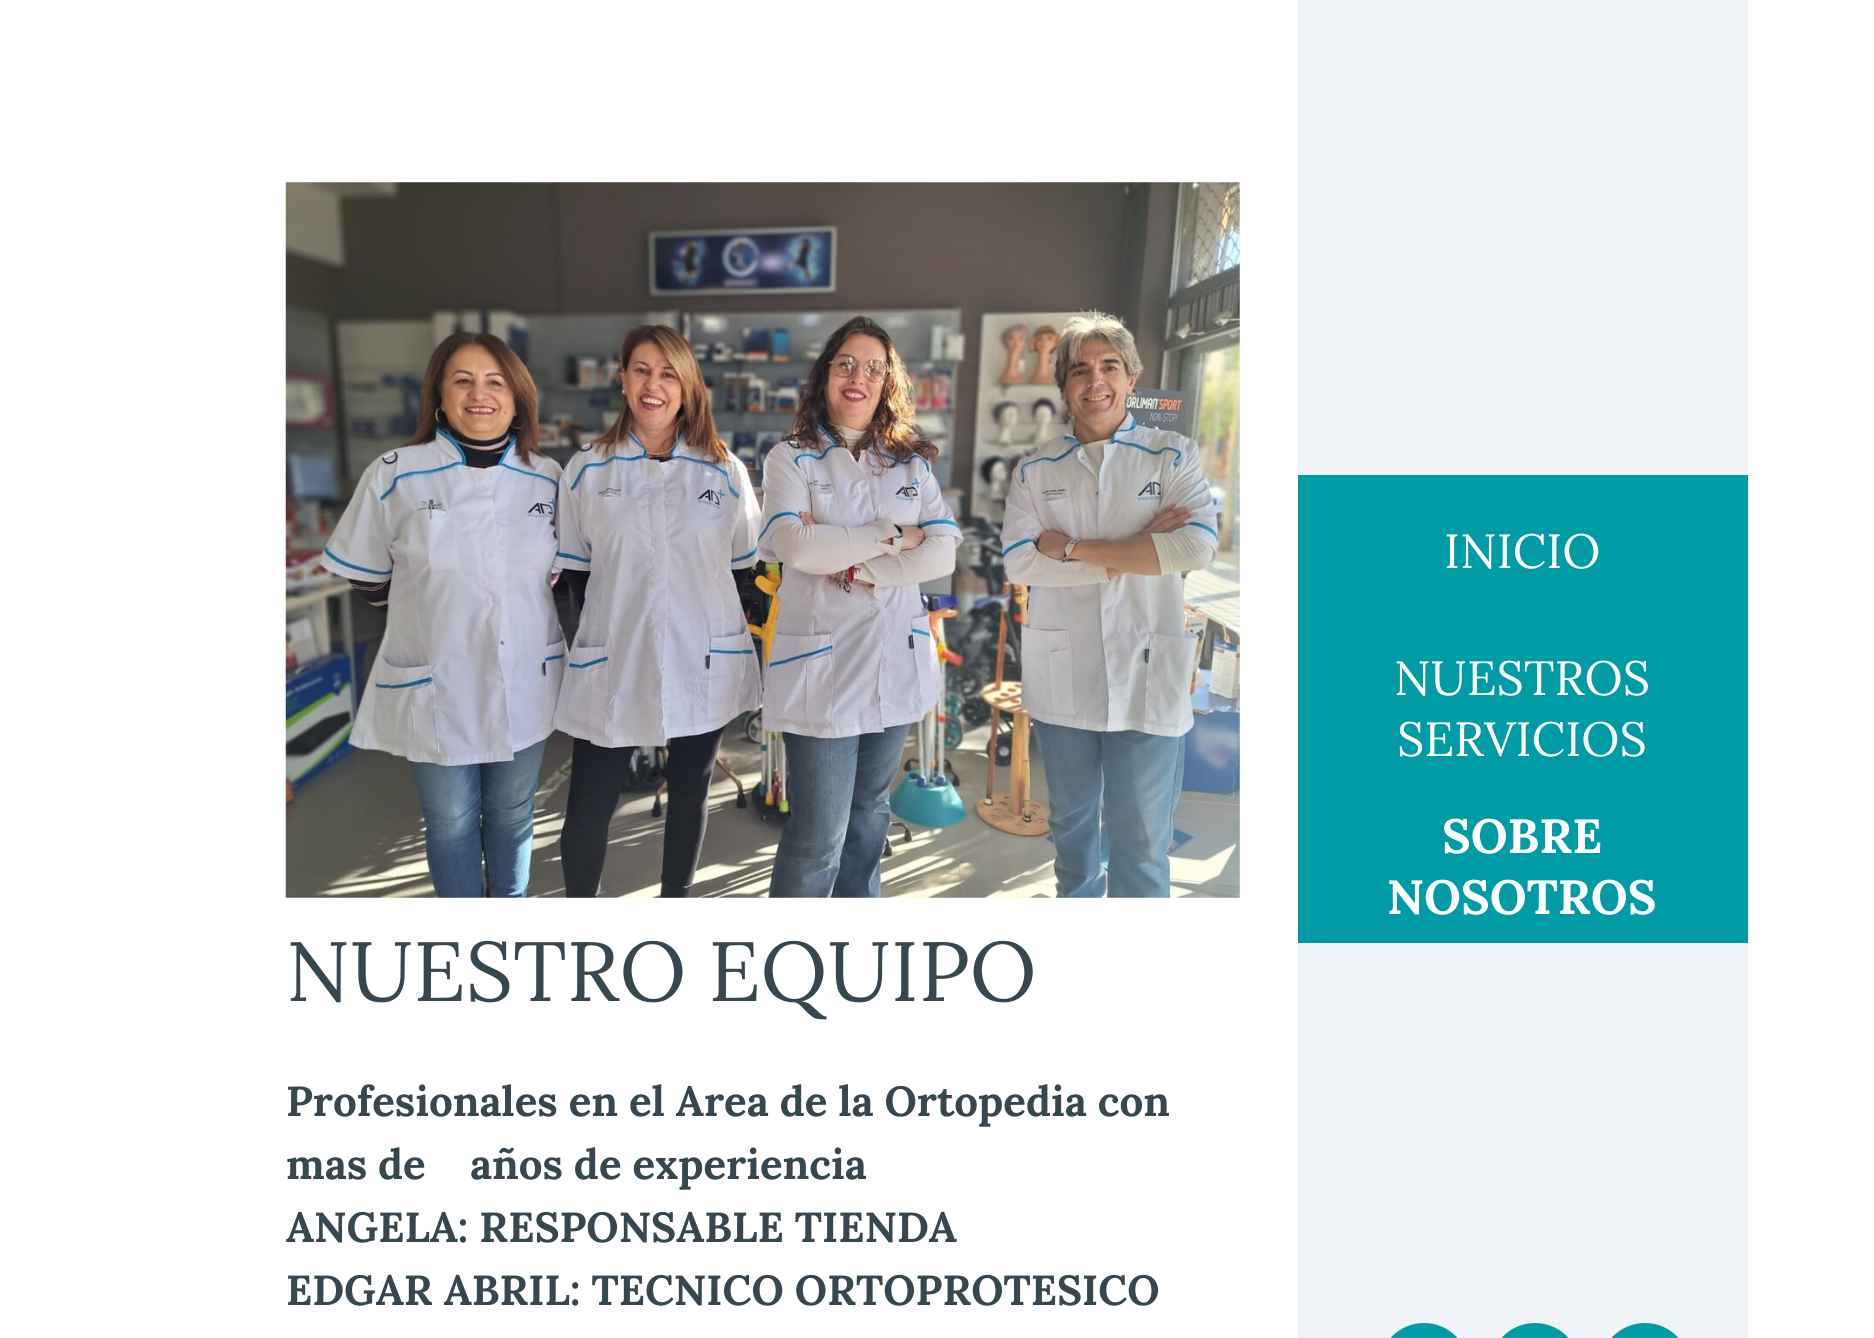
import math
import cairo

surface = cairo.ImageSurface(cairo.FORMAT_RGB24, 1874, 1338)
ctx = cairo.Context(surface)
options = cairo.FontOptions()
options.set_hint_metrics(cairo.HINT_METRICS_OFF)
options.set_hint_style(cairo.HINT_STYLE_NONE)
ctx.set_font_options(options)
ctx.set_miter_limit(4)


def round_rect(x, y, w, h, r):
    ctx.new_sub_path()
    for i, (u, v) in enumerate([(x + w - r, y + h - r), (x + r, y + h - r), (x + r, y + r), (x + w - r, y + r)]):
        ctx.arc(u, v, r, i * math.pi / 2, (i + 1) * math.pi / 2)
    ctx.close_path()


def picture(path, x, y, w, h):
    ctx.save()
    ctx.set_source_surface(cairo.ImageSurface.create_from_png(path), x, y)
    ctx.rectangle(x, y, w, h)
    ctx.fill()
    ctx.restore()


ctx.set_source_rgb(1, 1, 1)
ctx.paint()
ctx.set_source_rgb(0.941, 0.957, 0.965)
ctx.rectangle(1298, 0, 450, 1338)
ctx.fill()
ctx.set_source_rgb(0, 0.608, 0.643)
ctx.rectangle(1298, 475, 450, 468)
ctx.fill()
ctx.select_font_face("Lora")
ctx.set_font_size(48)
ctx.set_source_rgb(1, 1, 1)
ctx.move_to(1444, 568)
ctx.show_text("INICIO")
ctx.move_to(1394, 695)
ctx.show_text("NUESTROS")
ctx.move_to(1397, 756)
ctx.show_text("SERVICIOS")
ctx.select_font_face("Lora", cairo.FONT_SLANT_NORMAL, cairo.FONT_WEIGHT_BOLD)
ctx.move_to(1442, 853)
ctx.show_text("SOBRE")
ctx.move_to(1387, 914)
ctx.show_text("NOSOTROS")
ctx.set_source_rgb(0, 0.608, 0.643)
round_rect(1379, 1323, 90, 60, 45)
ctx.fill()
round_rect(1490, 1323, 90, 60, 45)
ctx.fill()
round_rect(1600, 1323, 90, 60, 45)
ctx.fill()
picture("img1.png", 285, 182, 955, 716)
ctx.select_font_face("Lora")
ctx.set_font_size(84)
ctx.set_source_rgb(0.216, 0.278, 0.31)
ctx.move_to(286, 1001)
ctx.show_text("NUESTRO EQUIPO")
ctx.select_font_face("Lora", cairo.FONT_SLANT_NORMAL, cairo.FONT_WEIGHT_BOLD)
ctx.set_font_size(42)
ctx.move_to(286, 1116)
ctx.show_text("Profesionales en el Area de la Ortopedia con")
ctx.move_to(286, 1179)
ctx.show_text("mas de    años de experiencia")
ctx.move_to(286, 1242)
ctx.show_text("ANGELA: RESPONSABLE TIENDA")
ctx.move_to(286, 1305)
ctx.show_text("EDGAR ABRIL: TECNICO ORTOPROTESICO")
surface.write_to_png("page.png")
